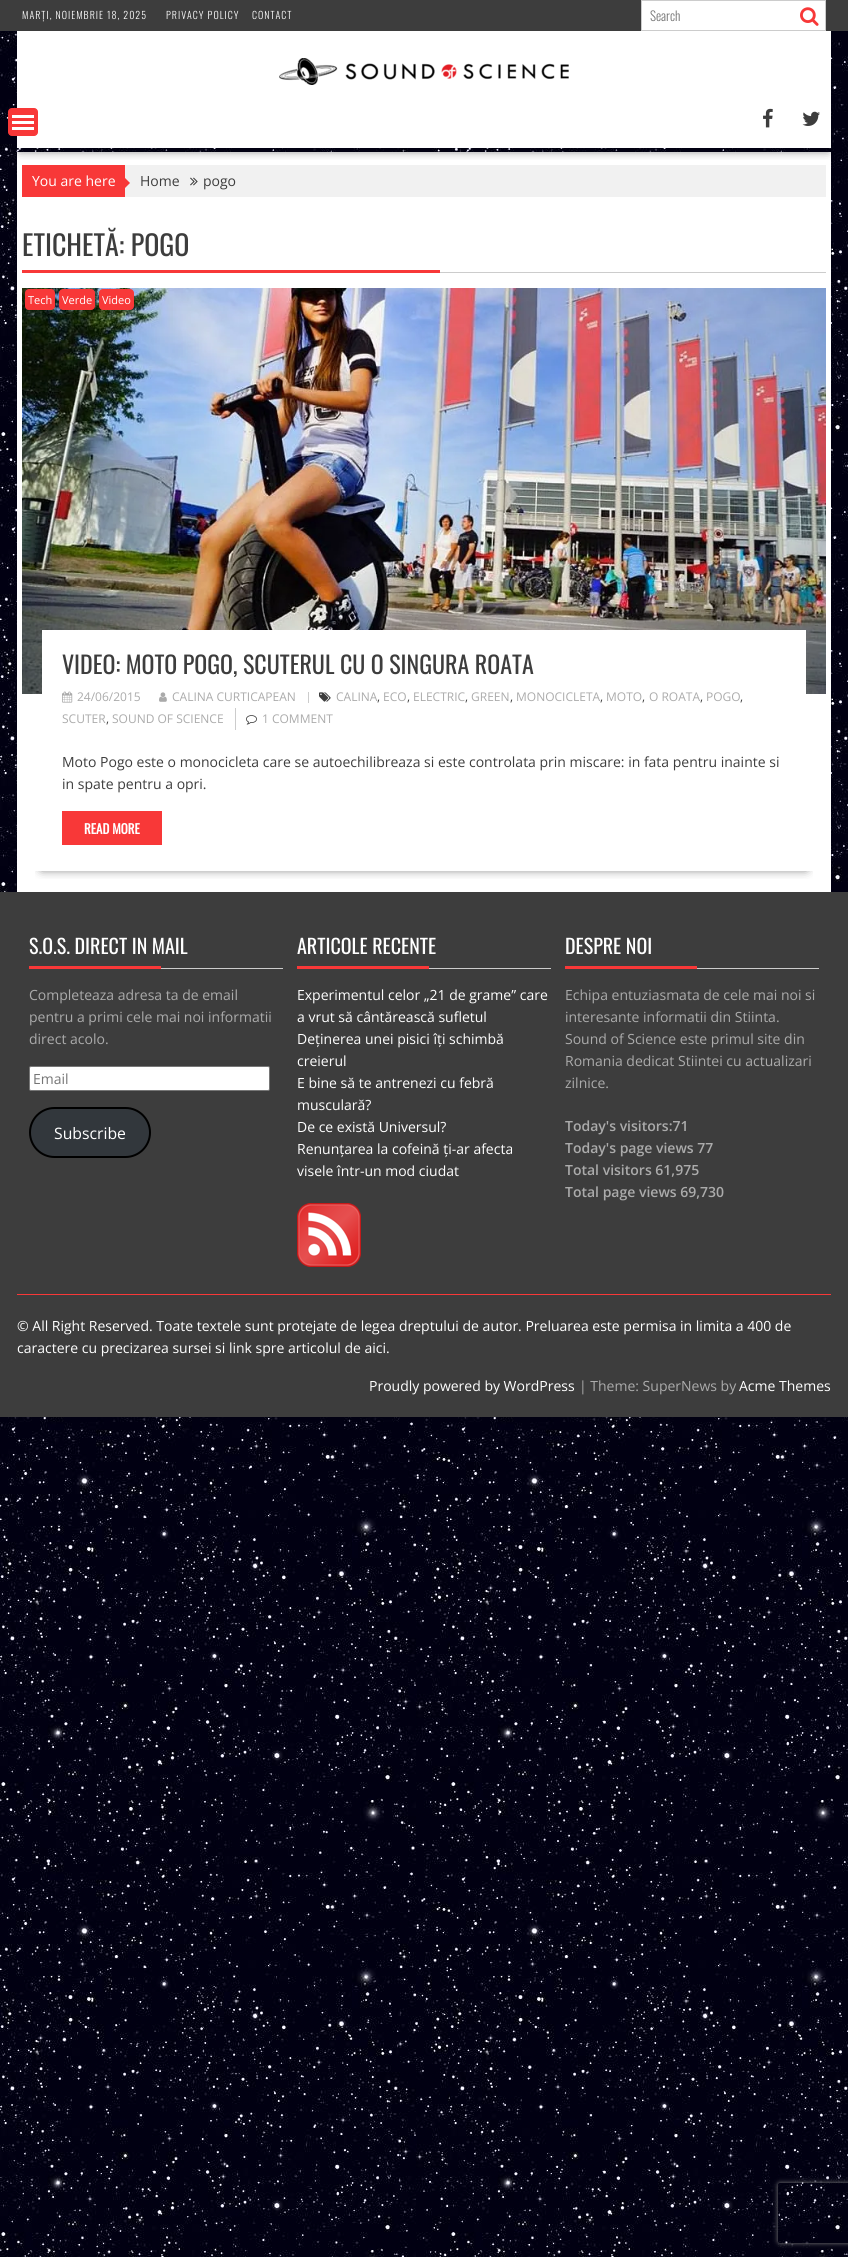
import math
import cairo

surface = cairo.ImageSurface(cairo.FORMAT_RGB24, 848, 2257)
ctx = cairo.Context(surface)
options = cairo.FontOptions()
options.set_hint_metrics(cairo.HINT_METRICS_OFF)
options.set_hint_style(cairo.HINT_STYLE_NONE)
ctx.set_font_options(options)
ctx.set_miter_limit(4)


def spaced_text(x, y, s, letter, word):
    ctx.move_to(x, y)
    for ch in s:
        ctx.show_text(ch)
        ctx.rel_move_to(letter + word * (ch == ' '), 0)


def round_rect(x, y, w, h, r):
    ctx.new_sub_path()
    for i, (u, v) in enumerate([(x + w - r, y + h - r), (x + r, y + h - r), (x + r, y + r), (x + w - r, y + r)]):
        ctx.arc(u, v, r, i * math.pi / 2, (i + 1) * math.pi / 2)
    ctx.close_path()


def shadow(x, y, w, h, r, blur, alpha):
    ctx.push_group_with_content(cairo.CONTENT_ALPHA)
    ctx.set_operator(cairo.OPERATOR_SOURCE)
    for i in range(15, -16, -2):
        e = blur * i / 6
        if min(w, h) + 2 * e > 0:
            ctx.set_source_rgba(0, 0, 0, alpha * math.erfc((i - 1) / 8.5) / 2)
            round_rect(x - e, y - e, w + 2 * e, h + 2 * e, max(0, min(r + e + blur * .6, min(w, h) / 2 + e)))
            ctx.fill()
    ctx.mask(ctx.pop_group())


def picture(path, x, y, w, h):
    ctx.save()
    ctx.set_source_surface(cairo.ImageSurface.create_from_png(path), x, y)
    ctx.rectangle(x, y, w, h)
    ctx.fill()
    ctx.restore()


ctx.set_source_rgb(1, 1, 1)
ctx.paint()
picture("img1.png", 0, 31, 848, 2226)
ctx.set_source_rgb(0.239, 0.239, 0.239)
ctx.rectangle(0, 0, 848, 31)
ctx.fill()
ctx.select_font_face("Oswald Light")
ctx.set_font_size(10)
ctx.set_source_rgb(1, 1, 1)
spaced_text(22, 19, "MARȚI, NOIEMBRIE 18, 2025", 1, 0)
spaced_text(166, 19, "PRIVACY POLICY", 1, 0)
spaced_text(252, 19, "CONTACT", 1, 0)
ctx.rectangle(641.5, 0.5, 184, 30)
ctx.fill_preserve()
ctx.set_source_rgb(0.8, 0.8, 0.8)
ctx.set_line_width(1)
ctx.stroke()
ctx.set_font_size(13)
ctx.set_source_rgb(0.459, 0.459, 0.459)
ctx.move_to(650, 21)
ctx.show_text("Search")
picture("img2.png", 800, 7, 19, 19)
ctx.set_source_rgb(1, 1, 1)
ctx.rectangle(17, 31, 814, 69)
ctx.fill()
picture("img3.png", 279, 58, 290, 27)
ctx.rectangle(17, 152, 814, 740)
ctx.fill()
ctx.set_source_rgb(0.945, 0.945, 0.945)
ctx.rectangle(125, 165, 701, 32)
ctx.fill()
ctx.save()
ctx.rectangle(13, 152, 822, 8)
ctx.clip()
ctx.set_source_rgb(0, 0, 0)
shadow(20, 137, 808, 12, 0, 5.5, 0.75)
ctx.restore()
ctx.set_source_rgb(1, 1, 1)
ctx.rectangle(17, 100, 814, 48)
ctx.fill()
picture("img4.png", 763, 108, 10, 20)
picture("img5.png", 802, 111, 18, 15)
ctx.set_source_rgb(0.969, 0.22, 0.22)
round_rect(8.5, 108.5, 29, 27, 3.5)
ctx.fill_preserve()
ctx.stroke()
ctx.set_source_rgb(1, 1, 1)
ctx.rectangle(12, 127, 22, 3)
ctx.fill()
ctx.rectangle(12, 121, 22, 3)
ctx.fill()
ctx.rectangle(12, 115, 22, 3)
ctx.fill()
ctx.set_source_rgb(0.969, 0.22, 0.22)
ctx.rectangle(22, 165, 103, 32)
ctx.fill()
ctx.select_font_face("Open Sans")
ctx.set_font_size(14)
ctx.set_source_rgb(1, 1, 1)
ctx.move_to(32, 186)
ctx.show_text("You are here")
ctx.set_source_rgb(0.969, 0.22, 0.22)
ctx.new_path()
ctx.move_to(125, 188)
ctx.line_to(125, 178)
ctx.line_to(130, 183)
ctx.close_path()
ctx.fill()
ctx.set_source_rgb(0.239, 0.239, 0.239)
ctx.move_to(140, 186)
ctx.show_text("Home")
picture("img6.png", 190, 177, 8, 9)
ctx.move_to(203, 186)
ctx.show_text("pogo")
ctx.set_source_rgb(0.8, 0.8, 0.8)
ctx.rectangle(440, 272, 386, 1)
ctx.fill()
ctx.select_font_face("Oswald")
ctx.set_font_size(28)
ctx.set_source_rgb(0.239, 0.239, 0.239)
ctx.move_to(22, 256)
ctx.show_text("ETICHETĂ: POGO")
ctx.set_source_rgb(0.969, 0.22, 0.22)
ctx.rectangle(22, 270, 418, 3)
ctx.fill()
ctx.save()
ctx.rectangle(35, 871, 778, 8)
ctx.clip()
ctx.set_source_rgb(0, 0, 0)
shadow(42, 325, 764, 543, 0, 5.5, 0.75)
ctx.restore()
picture("img7.png", 22, 288, 804, 406)
round_rect(25, 289, 30, 21, 4)
ctx.fill()
ctx.select_font_face("Open Sans")
ctx.set_font_size(11)
ctx.set_source_rgb(1, 1, 1)
ctx.move_to(28, 304)
ctx.show_text("Tech")
ctx.set_source_rgb(0.969, 0.22, 0.22)
round_rect(59, 289, 36, 21, 4)
ctx.fill()
ctx.set_source_rgb(1, 1, 1)
ctx.move_to(62, 304)
ctx.show_text("Verde")
ctx.set_source_rgb(0.969, 0.22, 0.22)
round_rect(99, 289, 35, 21, 4)
ctx.fill()
ctx.set_source_rgb(1, 1, 1)
ctx.move_to(102, 304)
ctx.show_text("Video")
ctx.rectangle(42, 630, 764, 64)
ctx.fill()
ctx.select_font_face("Oswald")
ctx.set_font_size(24)
ctx.set_source_rgb(0.239, 0.239, 0.239)
ctx.move_to(62, 674)
ctx.show_text("VIDEO: MOTO POGO, SCUTERUL CU O SINGURA ROATA")
ctx.set_source_rgb(0.8, 0.8, 0.8)
ctx.rectangle(308, 692, 1, 11)
ctx.fill()
picture("img8.png", 319, 692, 12, 10)
ctx.select_font_face("Open Sans")
ctx.set_font_size(12)
ctx.set_source_rgb(0.671, 0.671, 0.671)
ctx.move_to(336, 701)
ctx.show_text("CALINA")
ctx.set_source_rgb(0.239, 0.239, 0.239)
ctx.move_to(377, 701)
ctx.show_text(",")
ctx.set_source_rgb(0.671, 0.671, 0.671)
ctx.move_to(383, 701)
ctx.show_text("ECO")
ctx.set_source_rgb(0.239, 0.239, 0.239)
ctx.move_to(407, 701)
ctx.show_text(",")
ctx.set_source_rgb(0.671, 0.671, 0.671)
ctx.move_to(413, 701)
ctx.show_text("ELECTRIC")
ctx.set_source_rgb(0.239, 0.239, 0.239)
ctx.move_to(465, 701)
ctx.show_text(",")
ctx.set_source_rgb(0.671, 0.671, 0.671)
ctx.move_to(471, 701)
ctx.show_text("GREEN")
ctx.set_source_rgb(0.239, 0.239, 0.239)
ctx.move_to(510, 701)
ctx.show_text(",")
ctx.set_source_rgb(0.671, 0.671, 0.671)
ctx.move_to(516, 701)
ctx.show_text("MONOCICLETA")
ctx.set_source_rgb(0.239, 0.239, 0.239)
ctx.move_to(600, 701)
ctx.show_text(",")
ctx.set_source_rgb(0.671, 0.671, 0.671)
ctx.move_to(606, 701)
ctx.show_text("MOTO")
ctx.set_source_rgb(0.239, 0.239, 0.239)
ctx.move_to(642, 701)
ctx.show_text(",")
ctx.set_source_rgb(0.671, 0.671, 0.671)
ctx.move_to(649, 701)
ctx.show_text("O ROATA")
ctx.set_source_rgb(0.239, 0.239, 0.239)
ctx.move_to(700, 701)
ctx.show_text(",")
ctx.set_source_rgb(0.671, 0.671, 0.671)
ctx.move_to(706, 701)
ctx.show_text("POGO")
ctx.set_source_rgb(0.239, 0.239, 0.239)
ctx.move_to(740, 701)
ctx.show_text(",")
ctx.set_source_rgb(0.671, 0.671, 0.671)
ctx.move_to(62, 723)
ctx.show_text("SCUTER")
ctx.set_source_rgb(0.239, 0.239, 0.239)
ctx.move_to(106, 723)
ctx.show_text(",")
ctx.set_source_rgb(0.671, 0.671, 0.671)
ctx.move_to(112, 723)
ctx.show_text("SOUND OF SCIENCE")
picture("img9.png", 62, 691, 11, 12)
ctx.move_to(77, 701)
ctx.show_text("24/06/2015")
picture("img10.png", 159, 692, 8, 10)
ctx.move_to(172, 701)
ctx.show_text("CALINA CURTICAPEAN")
ctx.set_source_rgb(0.8, 0.8, 0.8)
ctx.rectangle(235, 708, 1, 22)
ctx.fill()
picture("img11.png", 246, 715, 11, 10)
ctx.set_source_rgb(0.671, 0.671, 0.671)
ctx.move_to(262, 723)
ctx.show_text("1 COMMENT")
ctx.set_font_size(14)
ctx.set_source_rgb(0.239, 0.239, 0.239)
ctx.move_to(62, 767)
ctx.show_text("Moto Pogo este o monocicleta care se autoechilibreaza si este controlata prin miscare: in fata pentru inainte si")
ctx.move_to(62, 789)
ctx.show_text("in spate pentru a opri.")
ctx.set_source_rgb(0.969, 0.22, 0.22)
ctx.rectangle(62, 811, 100, 34)
ctx.fill()
ctx.select_font_face("Oswald", cairo.FONT_SLANT_NORMAL, cairo.FONT_WEIGHT_BOLD)
ctx.set_font_size(13)
ctx.set_source_rgb(1, 1, 1)
ctx.move_to(84, 834)
ctx.show_text("READ MORE")
ctx.set_source_rgb(0.239, 0.239, 0.239)
ctx.rectangle(0, 892, 848, 525)
ctx.fill()
ctx.set_source_rgb(0.8, 0.8, 0.8)
ctx.rectangle(161, 968, 122, 1)
ctx.fill()
ctx.select_font_face("Oswald")
ctx.set_font_size(20)
ctx.set_source_rgb(1, 1, 1)
ctx.move_to(29, 954)
ctx.show_text("S.O.S. DIRECT IN MAIL")
ctx.set_source_rgb(0.969, 0.22, 0.22)
ctx.rectangle(29, 966, 132, 3)
ctx.fill()
ctx.select_font_face("Open Sans")
ctx.set_font_size(14)
ctx.set_source_rgb(0.671, 0.671, 0.671)
ctx.move_to(29, 1000)
ctx.show_text("Completeaza adresa ta de email")
ctx.move_to(29, 1022)
ctx.show_text("pentru a primi cele mai noi informatii")
ctx.move_to(29, 1044)
ctx.show_text("direct acolo.")
ctx.set_source_rgb(1, 1, 1)
round_rect(29.5, 1066.5, 240, 24, 1.5)
ctx.fill_preserve()
ctx.set_source_rgb(0.463, 0.463, 0.463)
ctx.stroke()
ctx.set_source_rgb(0.459, 0.459, 0.459)
ctx.move_to(33, 1084)
ctx.show_text("Email")
ctx.set_source_rgb(0.196, 0.216, 0.235)
round_rect(30, 1108, 120, 49, 24.5)
ctx.fill_preserve()
ctx.set_source_rgb(0, 0, 0)
ctx.set_line_width(2)
ctx.stroke()
ctx.set_font_size(15.75)
ctx.set_source_rgb(1, 1, 1)
ctx.move_to(54, 1139)
ctx.show_text("Subscribe")
ctx.set_source_rgb(0.8, 0.8, 0.8)
ctx.rectangle(429, 968, 122, 1)
ctx.fill()
ctx.select_font_face("Oswald")
ctx.set_font_size(20)
ctx.set_source_rgb(1, 1, 1)
ctx.move_to(297, 954)
ctx.show_text("ARTICOLE RECENTE")
ctx.set_source_rgb(0.969, 0.22, 0.22)
ctx.rectangle(297, 966, 132, 3)
ctx.fill()
ctx.select_font_face("Open Sans")
ctx.set_font_size(14)
ctx.set_source_rgb(1, 1, 1)
ctx.move_to(297, 1000)
ctx.show_text("Experimentul celor „21 de grame” care")
ctx.move_to(297, 1022)
ctx.show_text("a vrut să cântărească sufletul")
ctx.move_to(297, 1044)
ctx.show_text("Deținerea unei pisici îți schimbă")
ctx.move_to(297, 1066)
ctx.show_text("creierul")
ctx.move_to(297, 1088)
ctx.show_text("E bine să te antrenezi cu febră")
ctx.move_to(297, 1110)
ctx.show_text("musculară?")
ctx.move_to(297, 1132)
ctx.show_text("De ce există Universul?")
ctx.move_to(297, 1154)
ctx.show_text("Renunțarea la cofeină ți-ar afecta")
ctx.move_to(297, 1176)
ctx.show_text("visele într-un mod ciudat")
picture("img12.png", 297, 1203, 64, 64)
ctx.set_source_rgb(0.8, 0.8, 0.8)
ctx.rectangle(697, 968, 122, 1)
ctx.fill()
ctx.select_font_face("Oswald")
ctx.set_font_size(20)
ctx.set_source_rgb(1, 1, 1)
ctx.move_to(565, 954)
ctx.show_text("DESPRE NOI")
ctx.set_source_rgb(0.969, 0.22, 0.22)
ctx.rectangle(565, 966, 132, 3)
ctx.fill()
ctx.select_font_face("Open Sans")
ctx.set_font_size(14)
ctx.set_source_rgb(0.671, 0.671, 0.671)
ctx.move_to(565, 1000)
ctx.show_text("Echipa entuziasmata de cele mai noi si")
ctx.move_to(565, 1022)
ctx.show_text("interesante informatii din Stiinta.")
ctx.move_to(565, 1044)
ctx.show_text("Sound of Science este primul site din")
ctx.move_to(565, 1066)
ctx.show_text("Romania dedicat Stiintei cu actualizari")
ctx.move_to(565, 1088)
ctx.show_text("zilnice.")
ctx.select_font_face("Open Sans SemiBold")
ctx.move_to(565, 1131)
ctx.show_text("Today's visitors:71")
ctx.move_to(565, 1153)
ctx.show_text("Today's page views 77")
ctx.move_to(565, 1175)
ctx.show_text("Total visitors 61,975")
ctx.move_to(565, 1197)
ctx.show_text("Total page views 69,730")
ctx.set_source_rgb(0.969, 0.22, 0.22)
ctx.rectangle(17, 1294, 814, 1)
ctx.fill()
ctx.select_font_face("Open Sans")
ctx.set_source_rgb(1, 1, 1)
ctx.move_to(17, 1331)
ctx.show_text("© All Right Reserved. Toate textele sunt protejate de legea dreptului de autor. Preluarea este permisa in limita a 400 de")
ctx.move_to(17, 1353)
ctx.show_text("caractere cu precizarea sursei si link spre articolul de aici.")
ctx.move_to(369, 1391)
ctx.show_text("Proudly powered by WordPress")
ctx.set_source_rgb(0.671, 0.671, 0.671)
ctx.move_to(579, 1391)
ctx.show_text("| Theme: SuperNews by")
ctx.set_source_rgb(1, 1, 1)
ctx.move_to(739, 1391)
ctx.show_text("Acme Themes")
ctx.save()
ctx.set_fill_rule(cairo.FILL_RULE_EVEN_ODD)
ctx.new_path()
ctx.move_to(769, 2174)
ctx.line_to(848, 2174)
ctx.line_to(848, 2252)
ctx.line_to(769, 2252)
ctx.close_path()
ctx.move_to(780, 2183)
ctx.line_to(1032, 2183)
ctx.curve_to(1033, 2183, 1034, 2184, 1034, 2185)
ctx.line_to(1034, 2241)
ctx.curve_to(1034, 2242, 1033, 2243, 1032, 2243)
ctx.line_to(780, 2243)
ctx.curve_to(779, 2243, 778, 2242, 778, 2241)
ctx.line_to(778, 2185)
ctx.curve_to(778, 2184, 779, 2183, 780, 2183)
ctx.close_path()
ctx.clip()
ctx.set_source_rgb(0.502, 0.502, 0.502)
shadow(778, 2183, 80, 60, 2, 2.5, 1)
ctx.restore()
surface.write_to_png("page.png")
